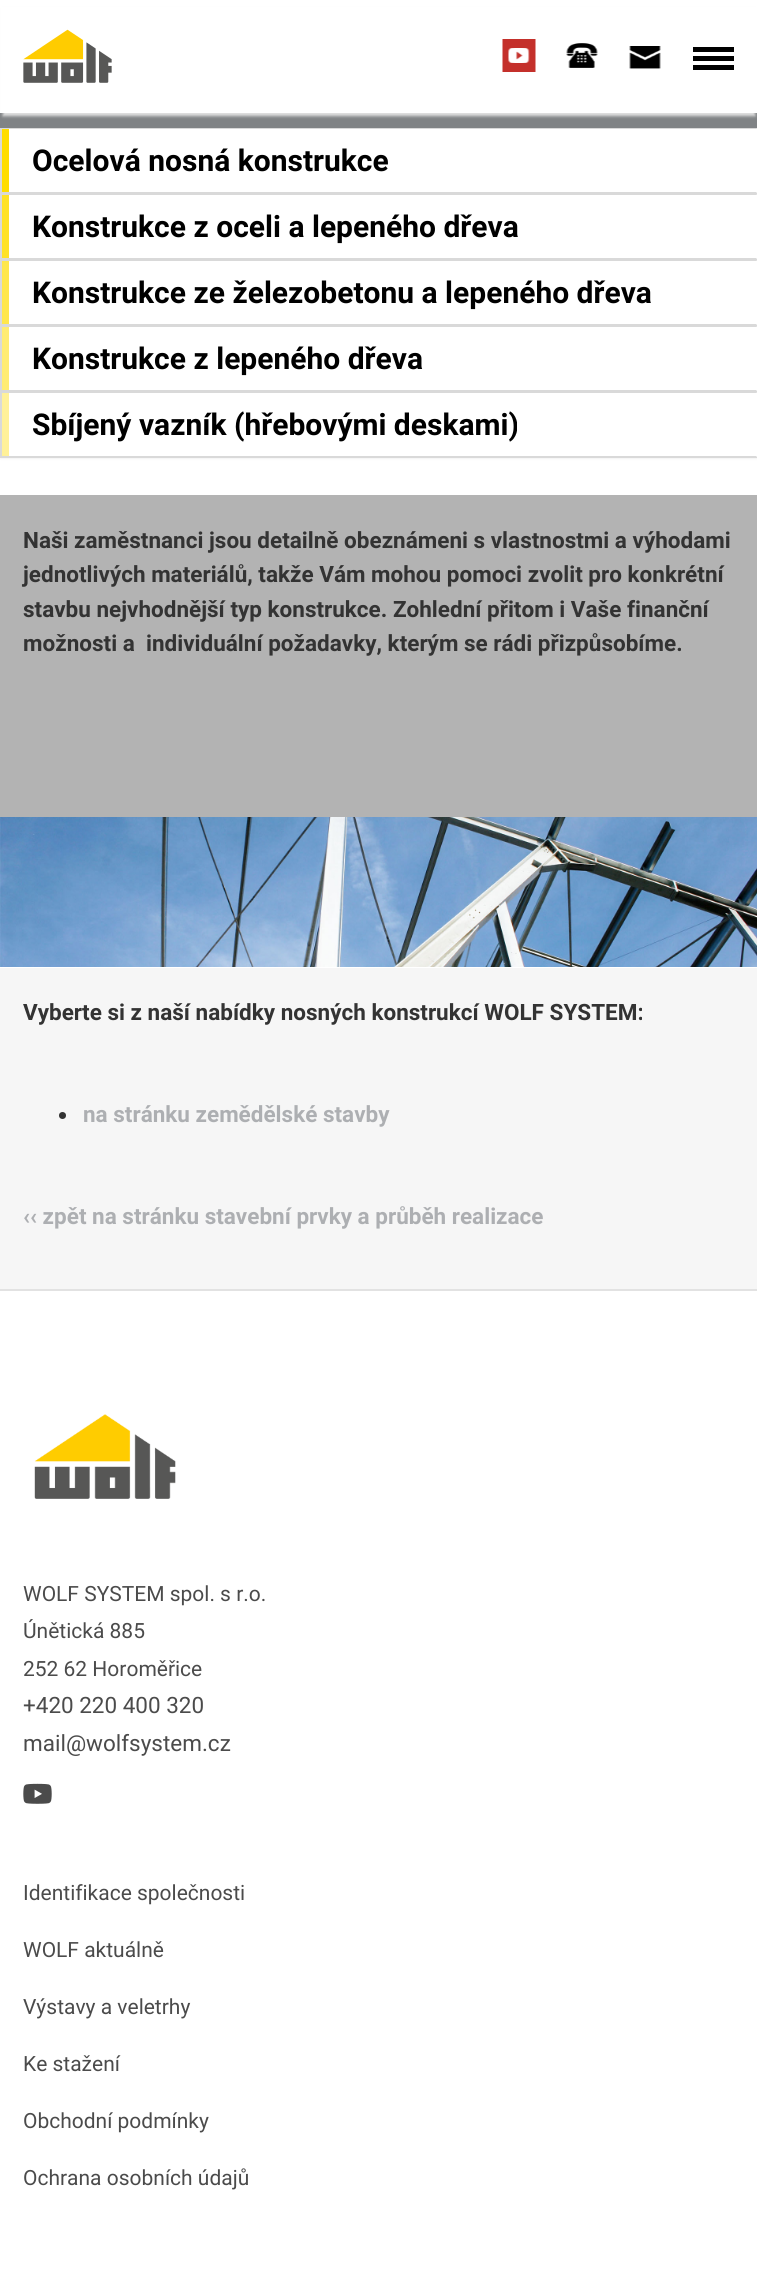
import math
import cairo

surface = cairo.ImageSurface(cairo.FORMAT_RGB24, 757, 2276)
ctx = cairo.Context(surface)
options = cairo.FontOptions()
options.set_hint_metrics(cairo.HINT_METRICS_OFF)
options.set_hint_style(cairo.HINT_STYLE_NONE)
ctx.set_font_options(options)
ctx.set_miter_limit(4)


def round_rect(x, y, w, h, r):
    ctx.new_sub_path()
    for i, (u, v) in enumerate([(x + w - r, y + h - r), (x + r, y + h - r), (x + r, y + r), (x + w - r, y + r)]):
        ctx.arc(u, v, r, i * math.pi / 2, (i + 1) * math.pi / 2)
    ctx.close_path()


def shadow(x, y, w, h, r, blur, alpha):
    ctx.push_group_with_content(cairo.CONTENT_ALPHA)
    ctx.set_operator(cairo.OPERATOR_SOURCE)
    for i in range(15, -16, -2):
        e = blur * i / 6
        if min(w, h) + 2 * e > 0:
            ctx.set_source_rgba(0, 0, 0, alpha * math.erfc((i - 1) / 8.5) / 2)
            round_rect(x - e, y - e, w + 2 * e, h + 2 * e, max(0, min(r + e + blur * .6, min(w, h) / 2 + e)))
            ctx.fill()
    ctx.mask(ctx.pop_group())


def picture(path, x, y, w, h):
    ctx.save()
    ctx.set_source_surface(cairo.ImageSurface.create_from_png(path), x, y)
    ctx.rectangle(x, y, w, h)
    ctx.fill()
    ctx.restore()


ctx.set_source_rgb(1, 1, 1)
ctx.paint()
ctx.set_source_rgb(0.502, 0.514, 0.522)
ctx.rectangle(0, 113, 757, 15)
ctx.fill()
ctx.set_source_rgb(0.886, 0.886, 0.886)
shadow(3, 9, 752, 107, 0, 1.5, 1)
ctx.set_source_rgb(1, 1, 1)
ctx.rectangle(1, 7, 756, 106)
ctx.fill()
picture("img1.png", 23, 29, 89, 54)
picture("img2.png", 502, 39, 34, 33)
picture("img3.png", 566, 43, 32, 25)
picture("img4.png", 629, 46, 32, 23)
ctx.set_source_rgb(0, 0, 0)
ctx.rectangle(693, 47, 41, 5)
ctx.fill()
ctx.rectangle(693, 56, 41, 5)
ctx.fill()
ctx.rectangle(693, 65, 41, 5)
ctx.fill()
ctx.set_source_rgb(0.851, 0.851, 0.851)
ctx.new_path()
ctx.move_to(0, 128)
ctx.line_to(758, 128)
ctx.line_to(756, 129)
ctx.line_to(2, 129)
ctx.close_path()
ctx.fill()
ctx.new_path()
ctx.move_to(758, 194)
ctx.line_to(0, 194)
ctx.line_to(2, 192)
ctx.line_to(756, 192)
ctx.close_path()
ctx.fill()
ctx.rectangle(0, 128, 2, 66)
ctx.fill()
ctx.set_source_rgb(1, 0.867, 0)
ctx.rectangle(2, 129, 7, 63)
ctx.fill()
ctx.select_font_face("Roboto", cairo.FONT_SLANT_NORMAL, cairo.FONT_WEIGHT_BOLD)
ctx.set_font_size(30)
ctx.set_source_rgb(0, 0, 0)
ctx.move_to(32, 171)
ctx.show_text("Ocelová nosná konstrukce")
ctx.set_source_rgb(0.851, 0.851, 0.851)
ctx.new_path()
ctx.move_to(0, 194)
ctx.line_to(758, 194)
ctx.line_to(756, 195)
ctx.line_to(2, 195)
ctx.close_path()
ctx.fill()
ctx.new_path()
ctx.move_to(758, 260)
ctx.line_to(0, 260)
ctx.line_to(2, 258)
ctx.line_to(756, 258)
ctx.close_path()
ctx.fill()
ctx.rectangle(0, 194, 2, 66)
ctx.fill()
ctx.set_source_rgb(1, 0.886, 0.149)
ctx.rectangle(2, 195, 7, 63)
ctx.fill()
ctx.set_source_rgb(0, 0, 0)
ctx.move_to(32, 237)
ctx.show_text("Konstrukce z oceli a lepeného dřeva")
ctx.set_source_rgb(0.851, 0.851, 0.851)
ctx.new_path()
ctx.move_to(0, 260)
ctx.line_to(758, 260)
ctx.line_to(756, 261)
ctx.line_to(2, 261)
ctx.close_path()
ctx.fill()
ctx.new_path()
ctx.move_to(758, 326)
ctx.line_to(0, 326)
ctx.line_to(2, 324)
ctx.line_to(756, 324)
ctx.close_path()
ctx.fill()
ctx.rectangle(0, 260, 2, 66)
ctx.fill()
ctx.set_source_rgb(1, 0.906, 0.298)
ctx.rectangle(2, 261, 7, 63)
ctx.fill()
ctx.set_source_rgb(0, 0, 0)
ctx.move_to(32, 303)
ctx.show_text("Konstrukce ze železobetonu a lepeného dřeva")
ctx.set_source_rgb(0.851, 0.851, 0.851)
ctx.new_path()
ctx.move_to(0, 326)
ctx.line_to(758, 326)
ctx.line_to(756, 327)
ctx.line_to(2, 327)
ctx.close_path()
ctx.fill()
ctx.new_path()
ctx.move_to(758, 392)
ctx.line_to(0, 392)
ctx.line_to(2, 390)
ctx.line_to(756, 390)
ctx.close_path()
ctx.fill()
ctx.rectangle(0, 326, 2, 66)
ctx.fill()
ctx.set_source_rgb(1, 0.925, 0.451)
ctx.rectangle(2, 327, 7, 63)
ctx.fill()
ctx.set_source_rgb(0, 0, 0)
ctx.move_to(32, 369)
ctx.show_text("Konstrukce z lepeného dřeva")
ctx.set_source_rgb(0, 0, 0)
shadow(0, 393, 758, 66, 0, 1, 0.05)
ctx.set_source_rgb(1, 1, 1)
ctx.rectangle(9, 392, 748, 65)
ctx.fill()
ctx.set_source_rgb(0.851, 0.851, 0.851)
ctx.new_path()
ctx.move_to(0, 392)
ctx.line_to(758, 392)
ctx.line_to(756, 393)
ctx.line_to(2, 393)
ctx.close_path()
ctx.fill()
ctx.new_path()
ctx.move_to(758, 458)
ctx.line_to(0, 458)
ctx.line_to(2, 456)
ctx.line_to(756, 456)
ctx.close_path()
ctx.fill()
ctx.rectangle(0, 392, 2, 66)
ctx.fill()
ctx.set_source_rgb(1, 0.945, 0.6)
ctx.rectangle(2, 393, 7, 63)
ctx.fill()
ctx.set_source_rgb(0, 0, 0)
ctx.move_to(32, 435)
ctx.show_text("Sbíjený vazník (hřebovými deskami)")
ctx.set_source_rgb(0.702, 0.702, 0.702)
ctx.rectangle(0, 495, 757, 322)
ctx.fill()
ctx.set_font_size(22.5)
ctx.set_source_rgb(0.2, 0.2, 0.2)
ctx.move_to(23, 548)
ctx.show_text("Naši zaměstnanci jsou detailně obeznámeni s vlastnostmi a výhodami")
ctx.move_to(23, 582)
ctx.show_text("jednotlivých materiálů, takže Vám mohou pomoci zvolit pro konkrétní")
ctx.move_to(23, 617)
ctx.show_text("stavbu nejvhodnější typ konstrukce. Zohlední přitom i Vaše finanční")
ctx.move_to(23, 651)
ctx.show_text("možnosti a  individuální požadavky, kterým se rádi přizpůsobíme.")
picture("img5.png", 0, 817, 757, 150)
ctx.set_source_rgb(0.961, 0.961, 0.961)
ctx.rectangle(0, 968, 757, 321)
ctx.fill()
ctx.set_source_rgb(0.2, 0.2, 0.2)
ctx.move_to(23, 1020)
ctx.show_text("Vyberte si z naší nabídky nosných konstrukcí WOLF SYSTEM:")
ctx.new_path()
ctx.arc(62.5, 1115.5, 3.5, 0, 2 * math.pi)
ctx.fill()
ctx.set_source_rgb(0.678, 0.686, 0.698)
ctx.move_to(83, 1122)
ctx.show_text("na stránku zemědělské stavby")
ctx.move_to(23, 1224)
ctx.show_text("‹‹ zpět na stránku stavební prvky a průběh realizace")
ctx.set_source_rgb(0.886, 0.886, 0.886)
ctx.rectangle(0, 1289, 757, 2)
ctx.fill()
picture("img6.png", 34, 1414, 142, 85)
ctx.select_font_face("Roboto")
ctx.set_font_size(21)
ctx.set_source_rgb(0.294, 0.294, 0.294)
ctx.move_to(23, 1601)
ctx.show_text("WOLF SYSTEM spol. s r.o.")
ctx.move_to(23, 1638)
ctx.show_text("Únětická 885")
ctx.move_to(23, 1676)
ctx.show_text("252 62 Horoměřice")
ctx.set_font_size(22.5)
ctx.move_to(23, 1713)
ctx.show_text("+420 220 400 320")
ctx.move_to(23, 1751)
ctx.show_text("mail@wolfsystem.cz")
picture("img7.png", 23, 1783, 29, 21)
ctx.set_font_size(21)
ctx.move_to(23, 1900)
ctx.show_text("Identifikace společnosti")
ctx.move_to(23, 1957)
ctx.show_text("WOLF aktuálně")
ctx.move_to(23, 2014)
ctx.show_text("Výstavy a veletrhy")
ctx.move_to(23, 2071)
ctx.show_text("Ke stažení")
ctx.move_to(23, 2128)
ctx.show_text("Obchodní podmínky")
ctx.move_to(23, 2185)
ctx.show_text("Ochrana osobních údajů")
surface.write_to_png("page.png")
